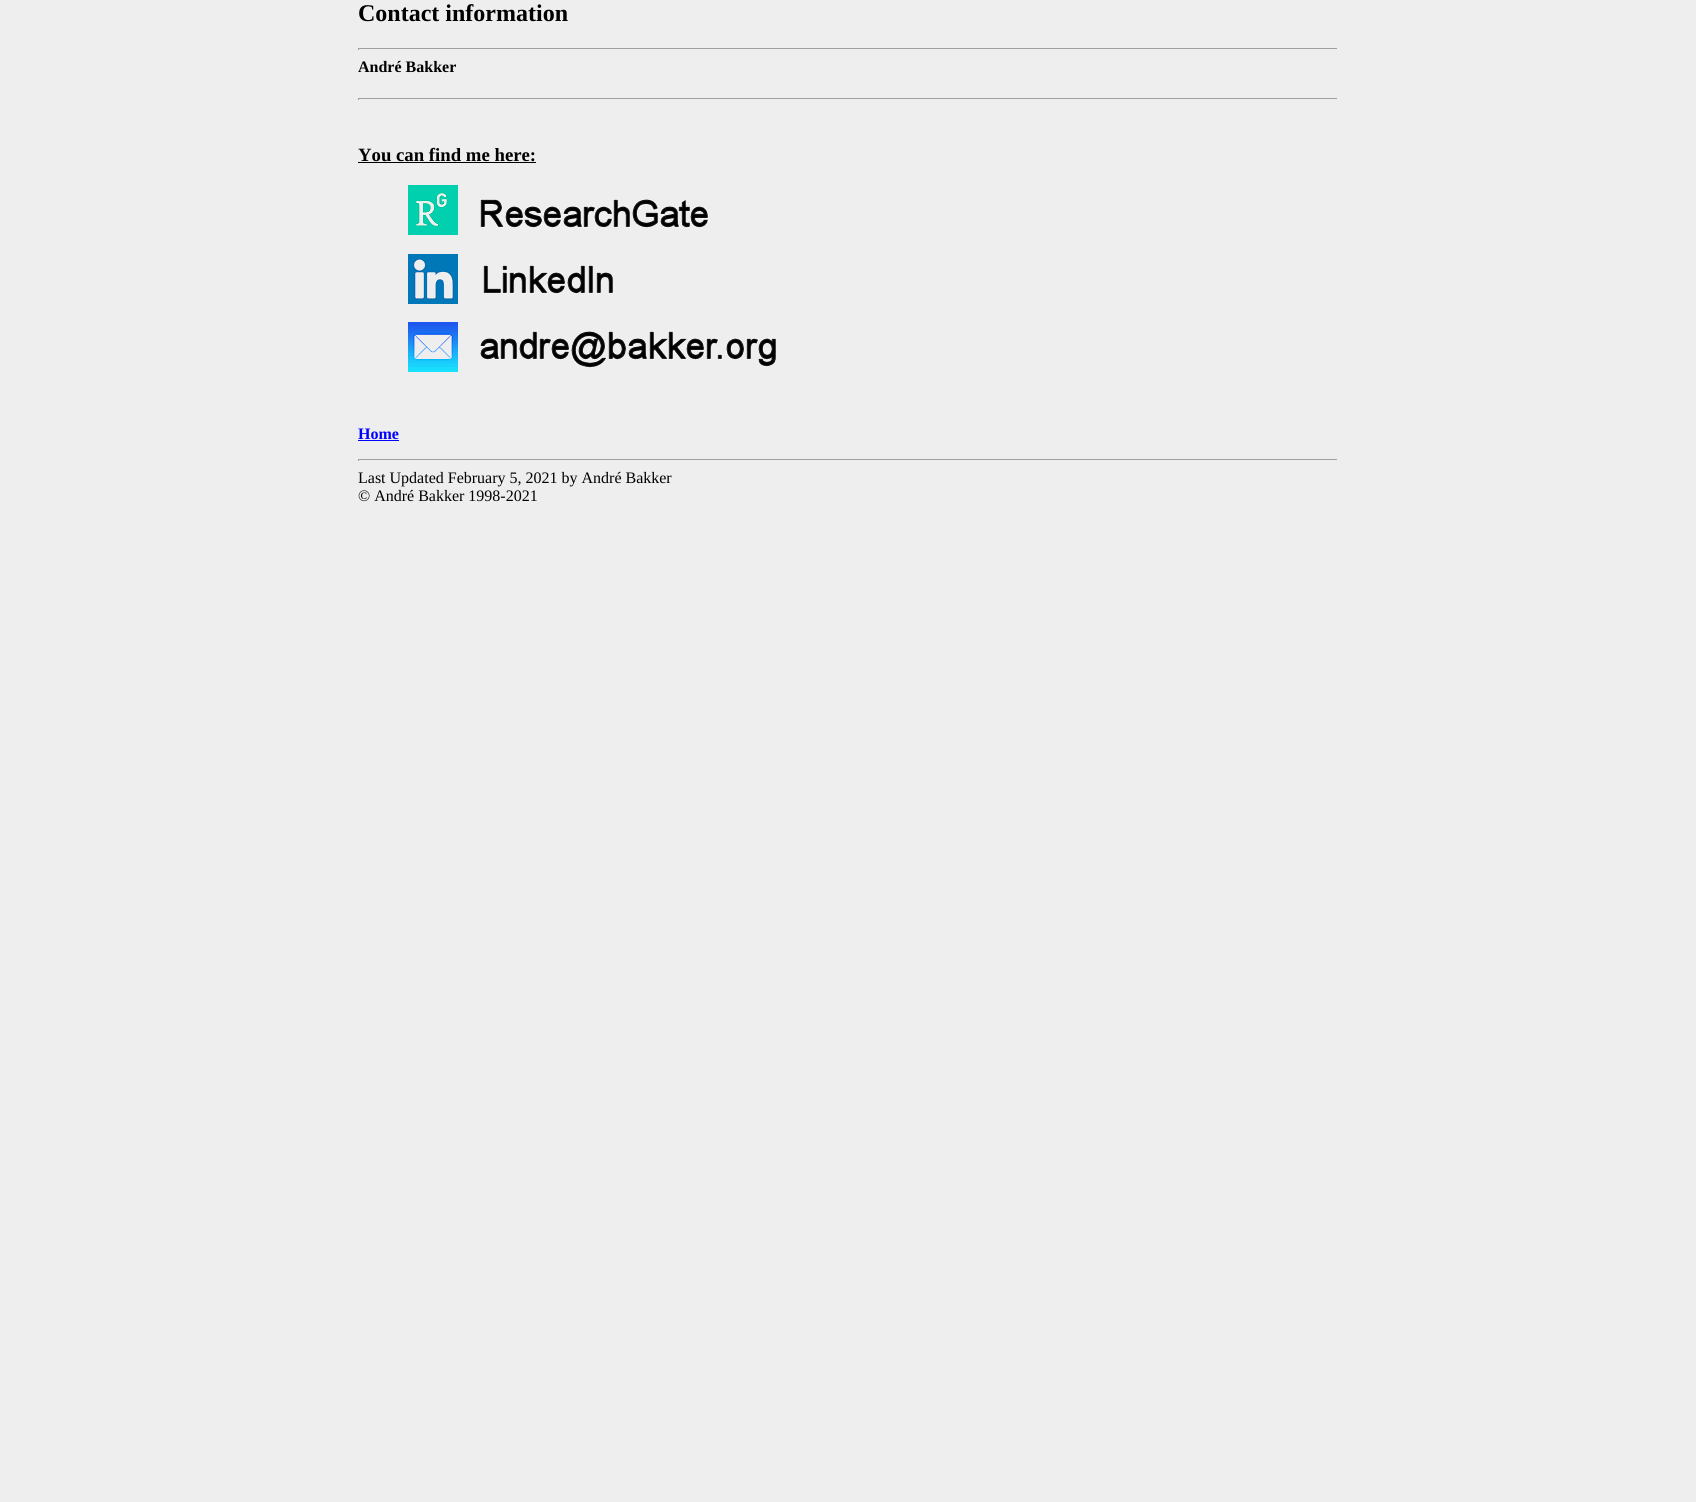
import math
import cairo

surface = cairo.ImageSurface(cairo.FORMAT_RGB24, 1696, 1502)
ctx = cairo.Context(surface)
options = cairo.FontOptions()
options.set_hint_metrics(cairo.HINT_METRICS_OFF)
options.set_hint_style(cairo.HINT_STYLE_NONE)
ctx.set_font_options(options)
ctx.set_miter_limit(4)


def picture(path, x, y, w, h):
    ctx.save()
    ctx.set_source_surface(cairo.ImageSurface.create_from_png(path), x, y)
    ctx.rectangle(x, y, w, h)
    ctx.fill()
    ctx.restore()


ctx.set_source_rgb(0.933, 0.933, 0.933)
ctx.paint()
ctx.select_font_face("Liberation Serif", cairo.FONT_SLANT_NORMAL, cairo.FONT_WEIGHT_BOLD)
ctx.set_font_size(24)
ctx.set_source_rgb(0, 0, 0)
ctx.move_to(358, 21)
ctx.show_text("Contact information")
ctx.set_source_rgb(0.624, 0.624, 0.624)
ctx.rectangle(358, 48, 980, 1)
ctx.fill()
ctx.set_source_rgb(0.933, 0.933, 0.933)
ctx.rectangle(1337, 48, 1, 2)
ctx.fill()
ctx.set_source_rgb(0.624, 0.624, 0.624)
ctx.rectangle(358, 48, 1, 2)
ctx.fill()
ctx.set_font_size(16)
ctx.set_source_rgb(0, 0, 0)
ctx.move_to(358, 72)
ctx.show_text("André Bakker")
ctx.set_source_rgb(0.624, 0.624, 0.624)
ctx.rectangle(358, 98, 980, 1)
ctx.fill()
ctx.set_source_rgb(0.933, 0.933, 0.933)
ctx.rectangle(1337, 98, 1, 2)
ctx.fill()
ctx.set_source_rgb(0.624, 0.624, 0.624)
ctx.rectangle(358, 98, 1, 2)
ctx.fill()
ctx.set_font_size(18.75)
ctx.set_source_rgb(0, 0, 0)
ctx.move_to(358, 161)
ctx.show_text("You can find me here:")
ctx.rectangle(358, 162, 178, 1)
ctx.fill()
picture("img1.png", 408, 185, 302, 50)
picture("img2.png", 408, 254, 205, 50)
picture("img3.png", 408, 322, 368, 50)
ctx.set_font_size(16)
ctx.set_source_rgb(0, 0, 1)
ctx.move_to(358, 439)
ctx.show_text("Home")
ctx.rectangle(358, 440, 41, 1)
ctx.fill()
ctx.set_source_rgb(0.624, 0.624, 0.624)
ctx.rectangle(358, 459, 980, 1)
ctx.fill()
ctx.set_source_rgb(0.933, 0.933, 0.933)
ctx.rectangle(1337, 459, 1, 2)
ctx.fill()
ctx.set_source_rgb(0.624, 0.624, 0.624)
ctx.rectangle(358, 459, 1, 2)
ctx.fill()
ctx.select_font_face("Liberation Serif")
ctx.set_source_rgb(0, 0, 0)
ctx.move_to(358, 483)
ctx.show_text("Last Updated February 5, 2021 by André Bakker")
ctx.move_to(358, 501)
ctx.show_text("© André Bakker 1998-2021")
surface.write_to_png("page.png")
